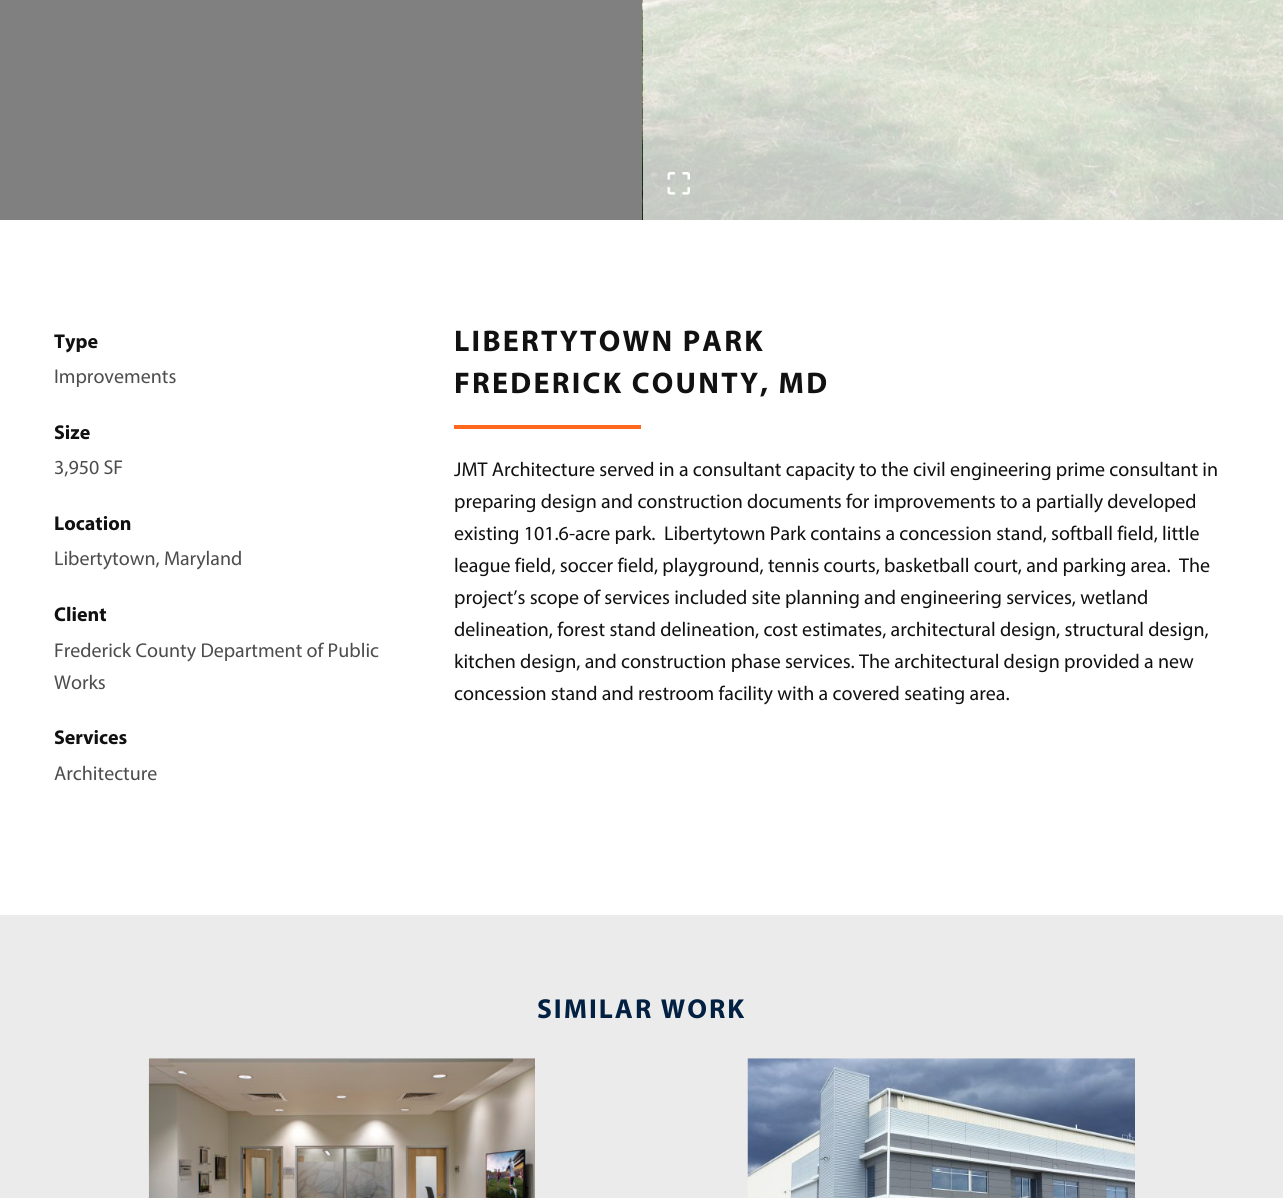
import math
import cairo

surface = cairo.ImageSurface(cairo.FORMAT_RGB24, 1283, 1198)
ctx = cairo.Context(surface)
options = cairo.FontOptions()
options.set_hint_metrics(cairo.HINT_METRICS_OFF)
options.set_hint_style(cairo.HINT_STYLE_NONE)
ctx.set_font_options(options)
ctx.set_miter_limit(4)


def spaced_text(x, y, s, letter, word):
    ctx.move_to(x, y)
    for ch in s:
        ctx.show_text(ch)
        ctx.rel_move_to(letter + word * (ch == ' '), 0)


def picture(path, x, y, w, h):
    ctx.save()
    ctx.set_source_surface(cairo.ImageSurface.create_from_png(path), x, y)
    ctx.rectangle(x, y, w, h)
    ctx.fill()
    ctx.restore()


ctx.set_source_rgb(1, 1, 1)
ctx.paint()
ctx.set_source_rgb(0.502, 0.502, 0.502)
ctx.rectangle(0, 0, 642, 220)
ctx.fill()
picture("img1.png", 642, 0, 641, 220)
picture("img2.png", 667, 172, 23, 23)
ctx.select_font_face("Myriad", cairo.FONT_SLANT_NORMAL, cairo.FONT_WEIGHT_BOLD)
ctx.set_font_size(20)
ctx.set_source_rgb(0.067, 0.067, 0.067)
ctx.move_to(54, 348)
ctx.show_text("Type")
ctx.select_font_face("Myriad")
ctx.set_source_rgb(0.302, 0.302, 0.302)
ctx.move_to(54, 383)
ctx.show_text("Improvements")
ctx.select_font_face("Myriad", cairo.FONT_SLANT_NORMAL, cairo.FONT_WEIGHT_BOLD)
ctx.set_source_rgb(0.067, 0.067, 0.067)
ctx.move_to(54, 439)
ctx.show_text("Size")
ctx.select_font_face("Myriad")
ctx.set_source_rgb(0.302, 0.302, 0.302)
ctx.move_to(54, 474)
ctx.show_text("3,950 SF")
ctx.select_font_face("Myriad", cairo.FONT_SLANT_NORMAL, cairo.FONT_WEIGHT_BOLD)
ctx.set_source_rgb(0.067, 0.067, 0.067)
ctx.move_to(54, 530)
ctx.show_text("Location")
ctx.select_font_face("Myriad")
ctx.set_source_rgb(0.302, 0.302, 0.302)
ctx.move_to(54, 565)
ctx.show_text("Libertytown, Maryland")
ctx.select_font_face("Myriad", cairo.FONT_SLANT_NORMAL, cairo.FONT_WEIGHT_BOLD)
ctx.set_source_rgb(0.067, 0.067, 0.067)
ctx.move_to(54, 621)
ctx.show_text("Client")
ctx.select_font_face("Myriad")
ctx.set_source_rgb(0.302, 0.302, 0.302)
ctx.move_to(54, 657)
ctx.show_text("Frederick County Department of Public")
ctx.move_to(54, 689)
ctx.show_text("Works")
ctx.select_font_face("Myriad", cairo.FONT_SLANT_NORMAL, cairo.FONT_WEIGHT_BOLD)
ctx.set_source_rgb(0.067, 0.067, 0.067)
ctx.move_to(54, 744)
ctx.show_text("Services")
ctx.select_font_face("Myriad")
ctx.set_source_rgb(0.302, 0.302, 0.302)
ctx.move_to(54, 780)
ctx.show_text("Architecture")
ctx.select_font_face("Myriad", cairo.FONT_SLANT_NORMAL, cairo.FONT_WEIGHT_BOLD)
ctx.set_font_size(30)
ctx.set_source_rgb(0.067, 0.067, 0.067)
spaced_text(454, 351, "LIBERTYTOWN PARK", 2.25, 0)
spaced_text(454, 393, "FREDERICK COUNTY, MD", 2.25, 0)
ctx.set_source_rgb(1, 0.404, 0.114)
ctx.rectangle(454, 425, 187, 4)
ctx.fill()
ctx.select_font_face("Myriad")
ctx.set_font_size(20)
ctx.set_source_rgb(0.067, 0.067, 0.067)
ctx.move_to(454, 476)
ctx.show_text("JMT Architecture served in a consultant capacity to the civil engineering prime consultant in")
ctx.move_to(454, 508)
ctx.show_text("preparing design and construction documents for improvements to a partially developed")
ctx.move_to(454, 540)
ctx.show_text("existing 101.6-acre park.  Libertytown Park contains a concession stand, softball field, little")
ctx.move_to(454, 572)
ctx.show_text("league field, soccer field, playground, tennis courts, basketball court, and parking area.  The")
ctx.move_to(454, 604)
ctx.show_text("project’s scope of services included site planning and engineering services, wetland")
ctx.move_to(454, 636)
ctx.show_text("delineation, forest stand delineation, cost estimates, architectural design, structural design,")
ctx.move_to(454, 668)
ctx.show_text("kitchen design, and construction phase services. The architectural design provided a new")
ctx.move_to(454, 700)
ctx.show_text("concession stand and restroom facility with a covered seating area.")
ctx.set_source_rgb(0.918, 0.918, 0.918)
ctx.rectangle(0, 915, 1283, 283)
ctx.fill()
ctx.select_font_face("Myriad", cairo.FONT_SLANT_NORMAL, cairo.FONT_WEIGHT_BOLD)
ctx.set_font_size(27.5)
ctx.set_source_rgb(0.008, 0.125, 0.255)
spaced_text(537, 1018, "SIMILAR WORK", 2, 0)
picture("img3.png", 148, 1058, 387, 140)
picture("img4.png", 747, 1058, 388, 140)
surface.write_to_png("page.png")
